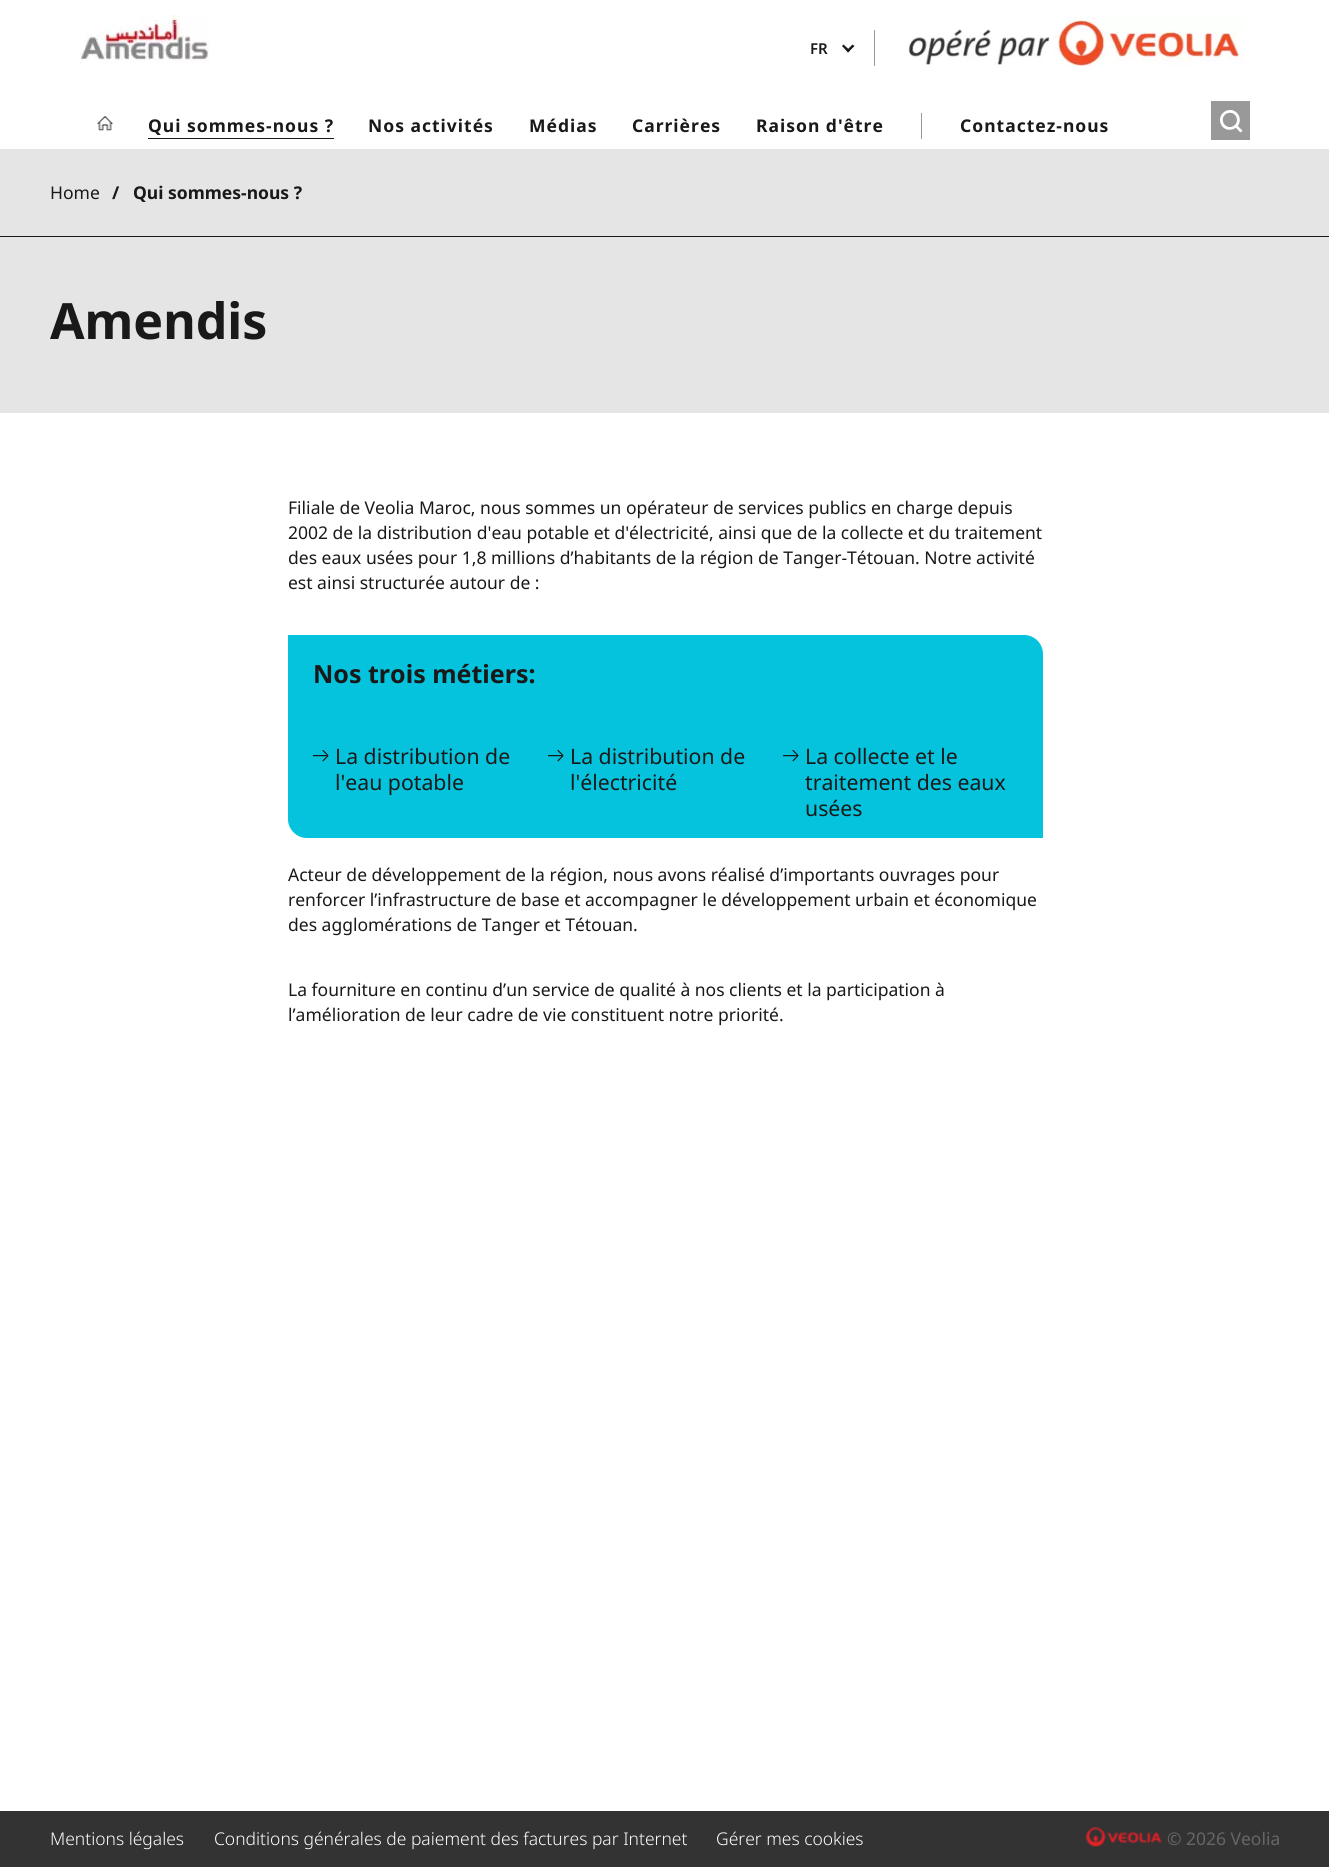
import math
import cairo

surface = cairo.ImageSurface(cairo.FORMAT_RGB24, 1329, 1867)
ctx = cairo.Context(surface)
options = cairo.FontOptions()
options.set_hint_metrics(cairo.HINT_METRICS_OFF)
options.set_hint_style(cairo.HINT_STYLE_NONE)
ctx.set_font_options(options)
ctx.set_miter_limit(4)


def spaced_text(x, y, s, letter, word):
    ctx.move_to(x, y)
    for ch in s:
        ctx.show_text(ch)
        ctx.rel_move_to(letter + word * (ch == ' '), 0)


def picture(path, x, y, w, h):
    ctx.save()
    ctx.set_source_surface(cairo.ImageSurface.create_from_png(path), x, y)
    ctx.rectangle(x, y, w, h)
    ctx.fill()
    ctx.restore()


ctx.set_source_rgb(1, 1, 1)
ctx.paint()
picture("img1.png", 80, 15, 130, 49)
ctx.set_source_rgb(0.6, 0.6, 0.6)
ctx.rectangle(874, 30, 1, 36)
ctx.fill()
ctx.select_font_face("Noto Sans SemiBold")
ctx.set_font_size(15)
ctx.set_source_rgb(0.098, 0.098, 0.098)
ctx.move_to(810, 54)
ctx.show_text("FR")
ctx.new_path()
ctx.move_to(852.5, 44.5)
ctx.line_to(854.5, 46)
ctx.line_to(848, 52.5)
ctx.line_to(846.5, 50.5)
ctx.close_path()
ctx.fill()
ctx.new_path()
ctx.move_to(843.5, 44.5)
ctx.line_to(850, 50.5)
ctx.line_to(848, 52.5)
ctx.line_to(842, 46)
ctx.close_path()
ctx.fill()
picture("img2.png", 907, 17, 337, 51)
picture("img3.png", 97, 116, 16, 15)
ctx.select_font_face("Noto Sans", cairo.FONT_SLANT_NORMAL, cairo.FONT_WEIGHT_BOLD)
ctx.set_font_size(17.5)
spaced_text(148, 132, "Qui sommes-nous ?", 1, 0)
ctx.rectangle(148, 138, 186, 1)
ctx.fill()
spaced_text(368, 132, "Nos activités", 1, 0)
spaced_text(529, 132, "Médias", 1, 0)
spaced_text(632, 132, "Carrières", 1, 0)
spaced_text(756, 132, "Raison d'être", 1, 0)
ctx.set_source_rgb(0.6, 0.6, 0.6)
ctx.rectangle(921, 113, 1, 26)
ctx.fill()
ctx.set_source_rgb(0.098, 0.098, 0.098)
spaced_text(960, 132, "Contactez-nous", 1, 0)
ctx.set_source_rgb(0.6, 0.6, 0.6)
ctx.rectangle(1211, 101, 39, 39)
ctx.fill()
picture("img4.png", 1220, 110, 23, 23)
ctx.set_source_rgb(0.898, 0.898, 0.898)
ctx.rectangle(0, 149, 1329, 264)
ctx.fill()
ctx.select_font_face("Noto Sans")
ctx.set_source_rgb(0.098, 0.098, 0.098)
ctx.move_to(50, 199)
ctx.show_text("Home")
ctx.select_font_face("Noto Sans", cairo.FONT_SLANT_NORMAL, cairo.FONT_WEIGHT_BOLD)
ctx.move_to(112, 199)
ctx.show_text("/")
ctx.move_to(133, 199)
ctx.show_text("Qui sommes-nous ?")
ctx.rectangle(0, 236, 1329, 1)
ctx.fill()
ctx.set_font_size(50)
ctx.move_to(50, 339)
ctx.show_text("Amendis")
ctx.select_font_face("Noto Sans")
ctx.set_font_size(17.5)
ctx.move_to(288, 514)
ctx.show_text("Filiale de Veolia Maroc, nous sommes un opérateur de services publics en charge depuis")
ctx.move_to(288, 539)
ctx.show_text("2002 de la distribution d'eau potable et d'électricité, ainsi que de la collecte et du traitement")
ctx.move_to(288, 564)
ctx.show_text("des eaux usées pour 1,8 millions d’habitants de la région de Tanger-Tétouan. Notre activité")
ctx.move_to(288, 589)
ctx.show_text("est ainsi structurée autour de :")
ctx.set_source_rgb(0.02, 0.765, 0.867)
ctx.new_path()
ctx.move_to(288, 635)
ctx.line_to(1024, 635)
ctx.curve_to(1034.5, 635, 1043, 643.5, 1043, 654)
ctx.line_to(1043, 838)
ctx.line_to(307, 838)
ctx.curve_to(296.5, 838, 288, 829.5, 288, 819)
ctx.close_path()
ctx.fill()
ctx.select_font_face("Noto Sans", cairo.FONT_SLANT_NORMAL, cairo.FONT_WEIGHT_BOLD)
ctx.set_font_size(25)
ctx.set_source_rgb(0.098, 0.098, 0.098)
ctx.move_to(313, 683)
ctx.show_text("Nos trois métiers:")
picture("img5.png", 312, 750, 17, 12)
ctx.select_font_face("Noto Sans")
ctx.set_font_size(21.25)
ctx.move_to(335, 764)
ctx.show_text("La distribution de")
ctx.move_to(335, 790)
ctx.show_text("l'eau potable")
picture("img5.png", 547, 750, 17, 12)
ctx.move_to(570, 764)
ctx.show_text("La distribution de")
ctx.move_to(570, 790)
ctx.show_text("l'électricité")
picture("img5.png", 782, 750, 17, 12)
ctx.move_to(805, 764)
ctx.show_text("La collecte et le")
ctx.move_to(805, 790)
ctx.show_text("traitement des eaux")
ctx.move_to(805, 816)
ctx.show_text("usées")
ctx.set_font_size(17.5)
ctx.move_to(288, 881)
ctx.show_text("Acteur de développement de la région, nous avons réalisé d’importants ouvrages pour")
ctx.move_to(288, 906)
ctx.show_text("renforcer l’infrastructure de base et accompagner le développement urbain et économique")
ctx.move_to(288, 931)
ctx.show_text("des agglomérations de Tanger et Tétouan.")
ctx.move_to(288, 996)
ctx.show_text("La fourniture en continu d’un service de qualité à nos clients et la participation à")
ctx.move_to(288, 1021)
ctx.show_text("l’amélioration de leur cadre de vie constituent notre priorité.")
ctx.set_source_rgb(0.2, 0.2, 0.2)
ctx.rectangle(0, 1811, 1329, 56)
ctx.fill()
ctx.select_font_face("Noto Sans Light")
ctx.set_font_size(17.45)
ctx.set_source_rgb(1, 1, 1)
ctx.move_to(50, 1845)
ctx.show_text("Mentions légales")
ctx.move_to(214, 1845)
ctx.show_text("Conditions générales de paiement des factures par Internet")
ctx.move_to(716, 1845)
ctx.show_text("Gérer mes cookies")
picture("img6.png", 1086, 1827, 76, 20)
ctx.select_font_face("Noto Sans")
ctx.set_source_rgb(0.4, 0.4, 0.4)
ctx.move_to(1167, 1845)
ctx.show_text("© 2026 Veolia")
surface.write_to_png("page.png")
